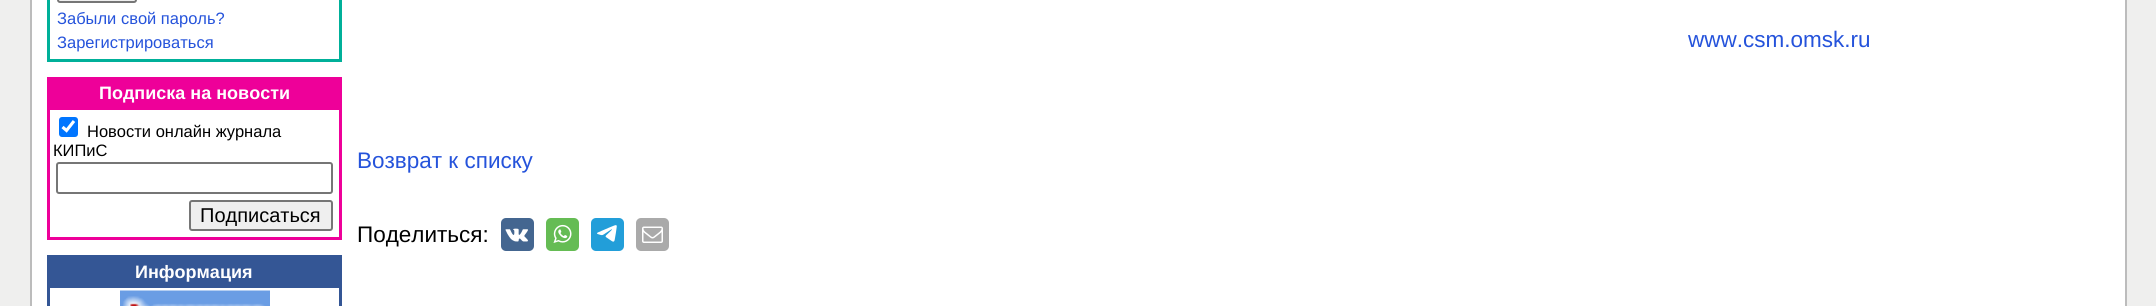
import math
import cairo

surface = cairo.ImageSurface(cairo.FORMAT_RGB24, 2156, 306)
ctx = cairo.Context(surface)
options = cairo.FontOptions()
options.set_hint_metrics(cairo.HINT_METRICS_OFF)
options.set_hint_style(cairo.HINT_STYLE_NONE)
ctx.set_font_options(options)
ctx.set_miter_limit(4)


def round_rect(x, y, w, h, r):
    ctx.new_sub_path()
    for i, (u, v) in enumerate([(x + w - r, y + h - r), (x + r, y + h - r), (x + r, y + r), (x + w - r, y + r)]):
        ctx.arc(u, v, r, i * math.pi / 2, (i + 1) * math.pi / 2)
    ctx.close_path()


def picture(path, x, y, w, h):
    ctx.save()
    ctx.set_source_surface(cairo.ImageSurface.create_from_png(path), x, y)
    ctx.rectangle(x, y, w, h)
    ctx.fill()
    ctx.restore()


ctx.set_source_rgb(0.937, 0.937, 0.933)
ctx.paint()
ctx.set_source_rgb(1, 1, 1)
ctx.rectangle(31, -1, 2095, 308)
ctx.fill_preserve()
ctx.set_source_rgb(0.737, 0.737, 0.737)
ctx.stroke()
ctx.rectangle(48.5, -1.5, 292, 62)
ctx.set_source_rgb(0, 0.69, 0.6)
ctx.set_line_width(3)
ctx.stroke()
ctx.set_source_rgb(0.937, 0.937, 0.937)
round_rect(58, -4, 78, 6, 2)
ctx.fill_preserve()
ctx.set_source_rgb(0.463, 0.463, 0.463)
ctx.set_line_width(2)
ctx.stroke()
ctx.select_font_face("Liberation Sans")
ctx.set_font_size(16.5)
ctx.set_source_rgb(0.145, 0.325, 0.859)
ctx.move_to(57, 24)
ctx.show_text("Забыли свой пароль?")
ctx.move_to(57, 48)
ctx.show_text("Зарегистрироваться")
ctx.rectangle(48.5, 78.5, 292, 160)
ctx.set_source_rgb(0.933, 0, 0.6)
ctx.set_line_width(3)
ctx.stroke()
ctx.rectangle(50, 80, 289, 30)
ctx.fill()
ctx.select_font_face("Liberation Sans", cairo.FONT_SLANT_NORMAL, cairo.FONT_WEIGHT_BOLD)
ctx.set_font_size(18)
ctx.set_source_rgb(1, 1, 1)
ctx.move_to(99, 99)
ctx.show_text("Подписка на новости")
ctx.set_source_rgb(0, 0.459, 1)
round_rect(59, 117, 19, 20, 3)
ctx.fill()
ctx.new_path()
ctx.move_to(62.5, 127)
ctx.line_to(66.5, 130.5)
ctx.line_to(74, 121)
ctx.set_source_rgb(1, 1, 1)
ctx.set_line_width(3.1)
ctx.stroke()
ctx.select_font_face("Liberation Sans")
ctx.set_font_size(16.5)
ctx.set_source_rgb(0, 0, 0)
ctx.move_to(87, 137)
ctx.show_text("Новости онлайн журнала")
ctx.move_to(53, 156)
ctx.show_text("КИПиС")
round_rect(57, 163, 275, 30, 2)
ctx.set_source_rgb(0.463, 0.463, 0.463)
ctx.set_line_width(2)
ctx.stroke()
ctx.set_source_rgb(0.937, 0.937, 0.937)
round_rect(190, 201, 142, 29, 2)
ctx.fill_preserve()
ctx.set_source_rgb(0.463, 0.463, 0.463)
ctx.stroke()
ctx.set_font_size(20)
ctx.set_source_rgb(0, 0, 0)
ctx.move_to(200, 222)
ctx.show_text("Подписаться")
ctx.rectangle(48.5, 256.5, 292, 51)
ctx.set_source_rgb(0.204, 0.337, 0.584)
ctx.set_line_width(3)
ctx.stroke()
ctx.rectangle(50, 258, 289, 30)
ctx.fill()
ctx.select_font_face("Liberation Sans", cairo.FONT_SLANT_NORMAL, cairo.FONT_WEIGHT_BOLD)
ctx.set_font_size(18)
ctx.set_source_rgb(1, 1, 1)
ctx.move_to(135, 278)
ctx.show_text("Информация")
picture("img1.png", 120, 290, 150, 16)
ctx.select_font_face("Liberation Sans")
ctx.set_font_size(22.5)
ctx.set_source_rgb(0.145, 0.325, 0.859)
ctx.move_to(1688, 47)
ctx.show_text("www.csm.omsk.ru")
ctx.move_to(357, 168)
ctx.show_text("Возврат к списку")
ctx.set_source_rgb(0, 0, 0)
ctx.move_to(357, 242)
ctx.show_text("Поделиться:")
ctx.set_source_rgb(0.267, 0.4, 0.565)
round_rect(501, 218, 33, 33, 5)
ctx.fill()
picture("img2.png", 505, 228, 23, 14)
ctx.set_source_rgb(0.396, 0.737, 0.329)
round_rect(546, 218, 33, 33, 5)
ctx.fill()
picture("img3.png", 553, 224, 19, 19)
ctx.set_source_rgb(0.133, 0.62, 0.851)
round_rect(591, 218, 33, 33, 5)
ctx.fill()
picture("img4.png", 597, 225, 20, 17)
ctx.set_source_rgb(0.667, 0.667, 0.667)
round_rect(636, 218, 33, 33, 5)
ctx.fill()
picture("img5.png", 642, 226, 21, 17)
surface.write_to_png("page.png")
